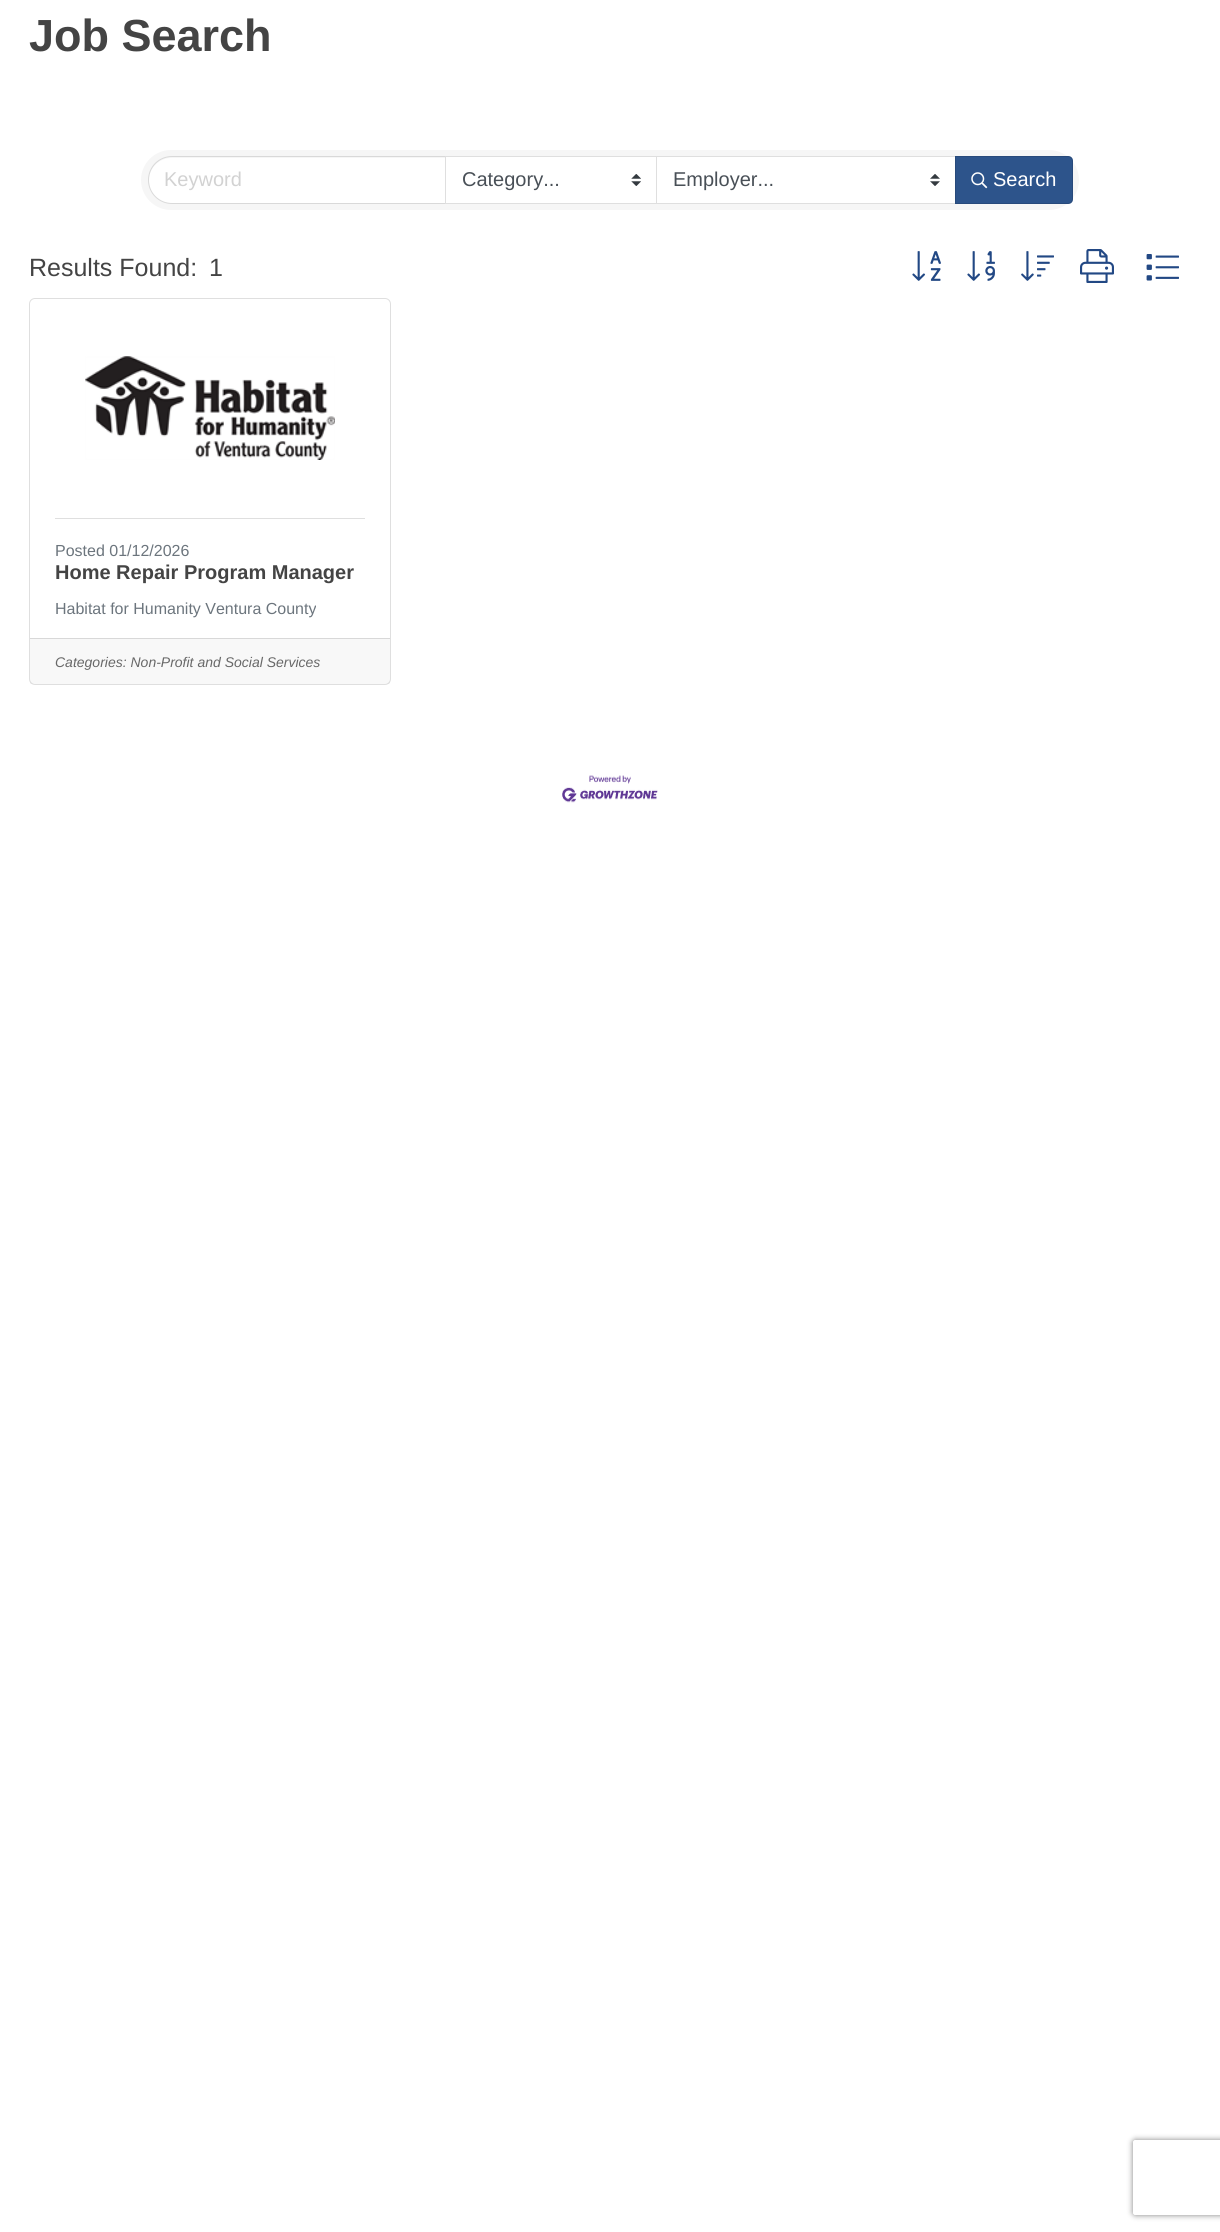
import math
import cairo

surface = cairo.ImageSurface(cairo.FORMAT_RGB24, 1220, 2232)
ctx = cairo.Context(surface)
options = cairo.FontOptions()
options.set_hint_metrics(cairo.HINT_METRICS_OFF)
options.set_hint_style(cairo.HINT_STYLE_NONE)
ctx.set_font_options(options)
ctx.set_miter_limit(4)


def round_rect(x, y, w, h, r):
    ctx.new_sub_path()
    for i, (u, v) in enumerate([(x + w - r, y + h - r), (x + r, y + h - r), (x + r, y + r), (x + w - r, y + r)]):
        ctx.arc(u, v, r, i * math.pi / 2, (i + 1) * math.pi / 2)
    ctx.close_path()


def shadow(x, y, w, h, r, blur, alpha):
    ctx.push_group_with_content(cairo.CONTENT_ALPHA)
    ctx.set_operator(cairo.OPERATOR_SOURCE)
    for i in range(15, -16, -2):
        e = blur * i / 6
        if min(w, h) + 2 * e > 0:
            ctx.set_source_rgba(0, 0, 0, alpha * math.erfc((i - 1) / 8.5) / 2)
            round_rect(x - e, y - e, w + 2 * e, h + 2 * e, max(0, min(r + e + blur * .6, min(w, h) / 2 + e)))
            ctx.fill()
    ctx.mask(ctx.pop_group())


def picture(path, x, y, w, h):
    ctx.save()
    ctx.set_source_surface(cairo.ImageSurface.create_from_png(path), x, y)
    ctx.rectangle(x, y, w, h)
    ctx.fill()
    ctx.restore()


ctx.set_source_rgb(1, 1, 1)
ctx.paint()
ctx.select_font_face("Liberation Sans", cairo.FONT_SLANT_NORMAL, cairo.FONT_WEIGHT_BOLD)
ctx.set_font_size(45)
ctx.set_source_rgb(0.267, 0.267, 0.267)
ctx.move_to(29, 51)
ctx.show_text("Job Search")
ctx.set_source_rgb(0.961, 0.961, 0.961)
round_rect(141, 150, 938, 60, 30)
ctx.fill()
ctx.set_source_rgb(1, 1, 1)
ctx.new_path()
ctx.move_to(171.5, 158)
ctx.line_to(445, 158)
ctx.line_to(445, 203)
ctx.line_to(171.5, 203)
ctx.curve_to(159, 203, 149, 193, 149, 180.5)
ctx.curve_to(149, 168, 159, 158, 171.5, 158)
ctx.close_path()
ctx.fill()
ctx.new_path()
ctx.move_to(172, 156.5)
ctx.line_to(445.5, 156.5)
ctx.line_to(445.5, 203.5)
ctx.line_to(172, 203.5)
ctx.curve_to(159, 203.5, 148.5, 193, 148.5, 180)
ctx.curve_to(148.5, 167, 159, 156.5, 172, 156.5)
ctx.close_path()
ctx.set_source_rgba(0, 0, 0, 0.12)
ctx.set_line_width(1)
ctx.stroke()
ctx.select_font_face("Liberation Sans")
ctx.set_font_size(20)
ctx.set_source_rgb(0.824, 0.824, 0.824)
ctx.move_to(164, 186)
ctx.show_text("Keyword")
ctx.set_source_rgb(1, 1, 1)
ctx.rectangle(446, 157, 210, 46)
ctx.fill()
picture("img1.png", 631, 174, 10, 12)
ctx.rectangle(445.5, 156.5, 212, 47)
ctx.set_source_rgb(0.875, 0.875, 0.875)
ctx.stroke()
ctx.set_source_rgb(0.286, 0.314, 0.341)
ctx.move_to(462, 186)
ctx.show_text("Category...")
ctx.set_source_rgb(1, 1, 1)
ctx.rectangle(657, 157, 298, 46)
ctx.fill()
picture("img2.png", 930, 174, 10, 12)
ctx.rectangle(656.5, 156.5, 299, 47)
ctx.set_source_rgb(0.875, 0.875, 0.875)
ctx.stroke()
ctx.set_source_rgb(0.286, 0.314, 0.341)
ctx.move_to(673, 186)
ctx.show_text("Employer...")
ctx.set_source_rgb(0.176, 0.329, 0.545)
ctx.new_path()
ctx.move_to(955, 156)
ctx.line_to(1068, 156)
ctx.curve_to(1071, 156, 1073, 158, 1073, 161)
ctx.line_to(1073, 199)
ctx.curve_to(1073, 202, 1071, 204, 1068, 204)
ctx.line_to(955, 204)
ctx.close_path()
ctx.fill()
ctx.new_path()
ctx.move_to(955.5, 156.5)
ctx.line_to(1068, 156.5)
ctx.curve_to(1070.5, 156.5, 1072.5, 158.5, 1072.5, 161)
ctx.line_to(1072.5, 199)
ctx.curve_to(1072.5, 201.5, 1070.5, 203.5, 1068, 203.5)
ctx.line_to(955.5, 203.5)
ctx.close_path()
ctx.set_source_rgba(0, 0, 0, 0.12)
ctx.stroke()
picture("img3.png", 971, 172, 17, 17)
ctx.set_source_rgb(1, 1, 1)
ctx.move_to(993, 186)
ctx.show_text("Search")
ctx.set_font_size(25)
ctx.set_source_rgb(0.267, 0.267, 0.267)
ctx.move_to(29, 276)
ctx.show_text("Results Found:")
ctx.move_to(209, 276)
ctx.show_text("1")
picture("img4.png", 912, 251, 29, 30)
picture("img5.png", 967, 251, 28, 30)
picture("img6.png", 1021, 251, 33, 30)
picture("img7.png", 1080, 249, 34, 34)
picture("img8.png", 1146, 254, 33, 27)
round_rect(29.5, 298.5, 361, 386, 5.5)
ctx.set_source_rgb(0.875, 0.875, 0.875)
ctx.stroke()
picture("img9.png", 85, 356, 250, 104)
ctx.rectangle(55, 518, 310, 1)
ctx.fill()
ctx.set_font_size(16)
ctx.set_source_rgb(0.424, 0.459, 0.49)
ctx.move_to(55, 556)
ctx.show_text("Posted 01/12/2026")
ctx.select_font_face("Liberation Sans", cairo.FONT_SLANT_NORMAL, cairo.FONT_WEIGHT_BOLD)
ctx.set_font_size(20)
ctx.set_source_rgb(0.267, 0.267, 0.267)
ctx.move_to(55, 579)
ctx.show_text("Home Repair Program Manager")
ctx.select_font_face("Liberation Sans")
ctx.set_font_size(16)
ctx.set_source_rgb(0.424, 0.459, 0.49)
ctx.move_to(55, 614)
ctx.show_text("Habitat for Humanity Ventura County")
ctx.set_source_rgba(0, 0, 0, 0.03)
ctx.rectangle(30, 639, 360, 45)
ctx.fill()
ctx.set_source_rgb(0.847, 0.847, 0.847)
ctx.rectangle(30, 638, 360, 1)
ctx.fill()
ctx.select_font_face("Liberation Sans", cairo.FONT_SLANT_ITALIC)
ctx.set_font_size(14)
ctx.set_source_rgb(0.408, 0.408, 0.408)
ctx.move_to(55, 667)
ctx.show_text("Categories: Non-Profit and Social Services")
picture("img10.png", 562, 775, 96, 28)
ctx.save()
ctx.set_fill_rule(cairo.FILL_RULE_EVEN_ODD)
ctx.new_path()
ctx.move_to(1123, 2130)
ctx.line_to(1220, 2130)
ctx.line_to(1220, 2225)
ctx.line_to(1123, 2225)
ctx.close_path()
ctx.move_to(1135.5, 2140)
ctx.line_to(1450.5, 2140)
ctx.curve_to(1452, 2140, 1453, 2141, 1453, 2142.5)
ctx.line_to(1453, 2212.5)
ctx.curve_to(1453, 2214, 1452, 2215, 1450.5, 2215)
ctx.line_to(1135.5, 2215)
ctx.curve_to(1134, 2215, 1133, 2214, 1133, 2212.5)
ctx.line_to(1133, 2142.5)
ctx.curve_to(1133, 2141, 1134, 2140, 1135.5, 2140)
ctx.close_path()
ctx.clip()
ctx.set_source_rgb(0.502, 0.502, 0.502)
shadow(1133, 2140, 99, 75, 2.5, 3, 1)
ctx.restore()
surface.write_to_png("page.png")
